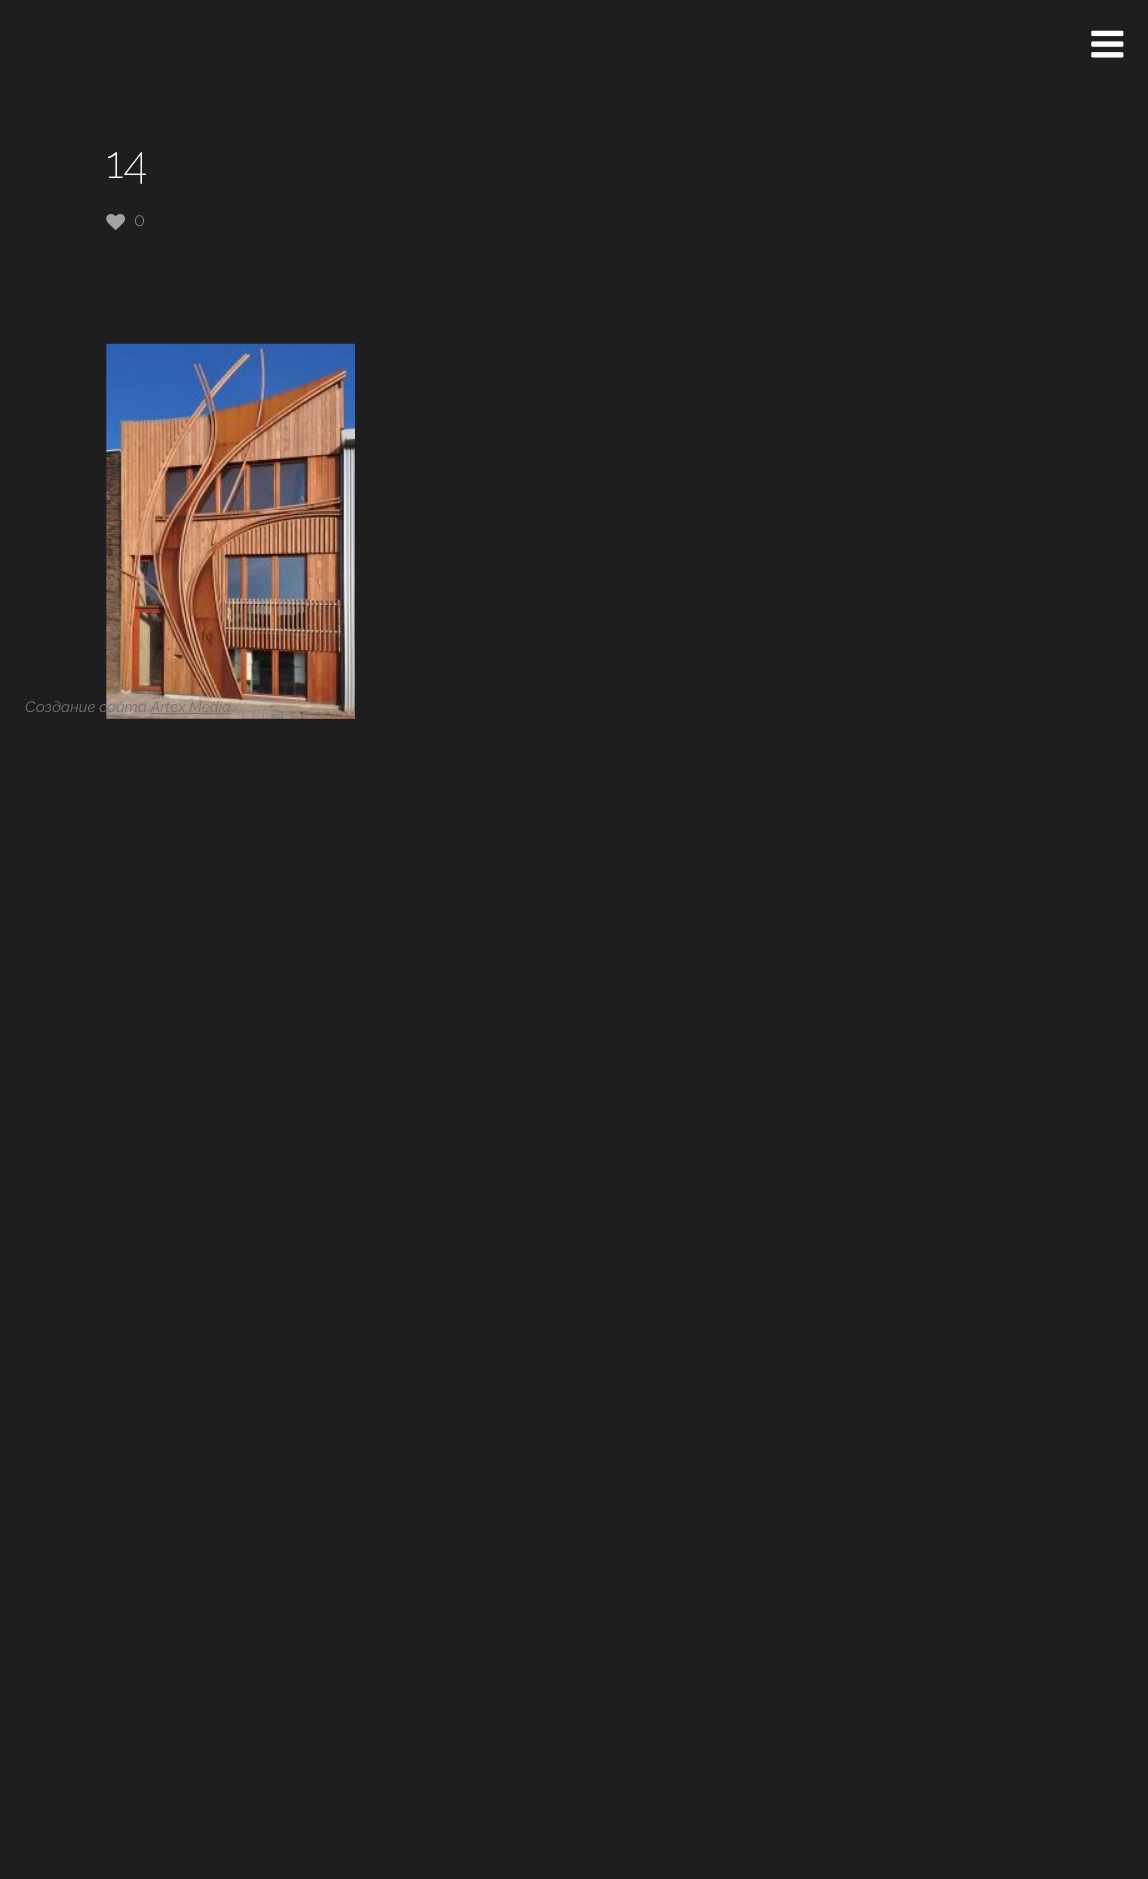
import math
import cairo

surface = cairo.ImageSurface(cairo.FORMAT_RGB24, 1148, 1879)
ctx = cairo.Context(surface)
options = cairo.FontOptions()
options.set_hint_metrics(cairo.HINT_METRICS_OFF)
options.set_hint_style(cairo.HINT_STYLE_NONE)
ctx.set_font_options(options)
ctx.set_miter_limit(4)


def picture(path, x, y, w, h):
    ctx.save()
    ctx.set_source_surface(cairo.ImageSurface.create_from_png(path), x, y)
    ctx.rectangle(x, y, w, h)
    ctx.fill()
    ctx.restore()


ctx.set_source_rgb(0.118, 0.118, 0.118)
ctx.paint()
picture("img1.png", 1091, 30, 33, 28)
ctx.select_font_face("Raleway ExtraLight")
ctx.set_font_size(45)
ctx.set_source_rgb(1, 1, 1)
ctx.move_to(106, 178)
ctx.show_text("14")
picture("img2.png", 106, 214, 19, 16)
ctx.select_font_face("Raleway Light")
ctx.set_font_size(18)
ctx.set_source_rgb(0.545, 0.545, 0.545)
ctx.move_to(134, 226)
ctx.show_text("0")
picture("img3.png", 106, 343, 249, 376)
ctx.select_font_face("Raleway", cairo.FONT_SLANT_ITALIC)
ctx.set_font_size(15)
ctx.set_source_rgb(0.451, 0.451, 0.451)
ctx.move_to(25, 712)
ctx.show_text("Создание сайта Artex Media")
ctx.rectangle(150, 713, 81, 1)
ctx.fill()
surface.write_to_png("page.png")
